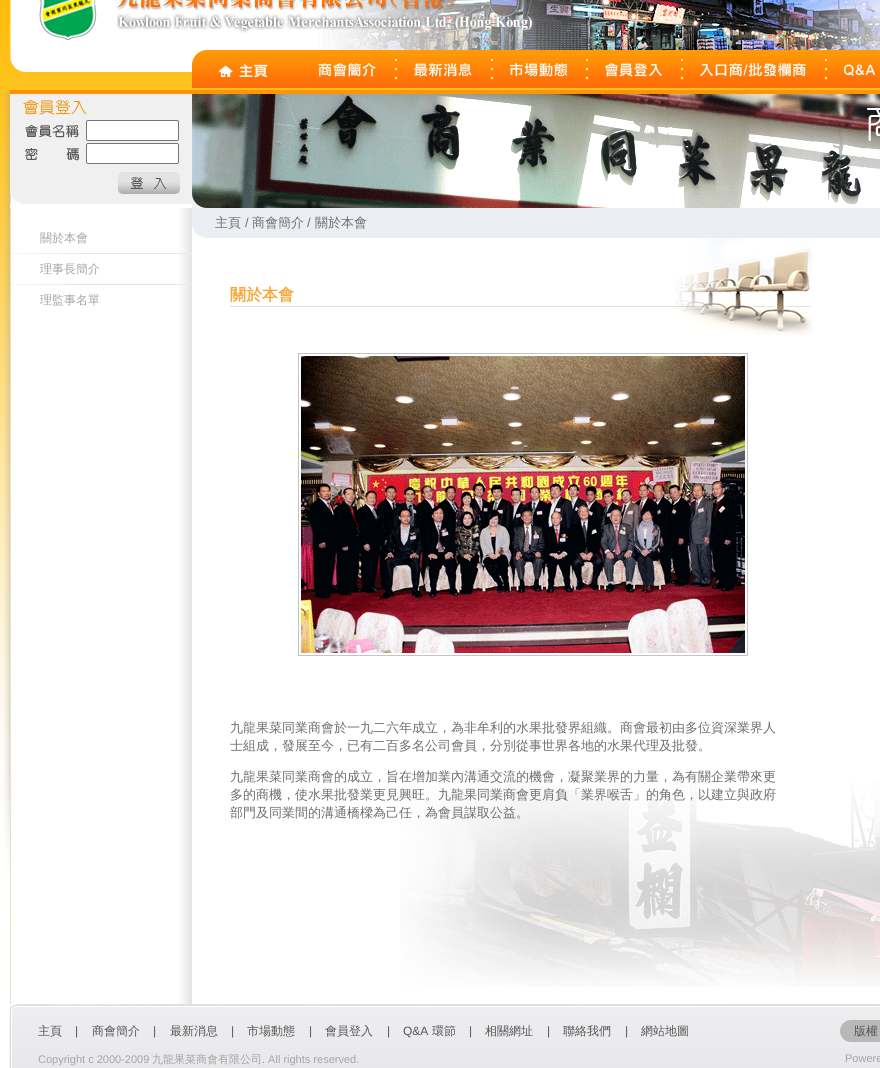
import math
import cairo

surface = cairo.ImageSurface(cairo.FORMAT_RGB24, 880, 1068)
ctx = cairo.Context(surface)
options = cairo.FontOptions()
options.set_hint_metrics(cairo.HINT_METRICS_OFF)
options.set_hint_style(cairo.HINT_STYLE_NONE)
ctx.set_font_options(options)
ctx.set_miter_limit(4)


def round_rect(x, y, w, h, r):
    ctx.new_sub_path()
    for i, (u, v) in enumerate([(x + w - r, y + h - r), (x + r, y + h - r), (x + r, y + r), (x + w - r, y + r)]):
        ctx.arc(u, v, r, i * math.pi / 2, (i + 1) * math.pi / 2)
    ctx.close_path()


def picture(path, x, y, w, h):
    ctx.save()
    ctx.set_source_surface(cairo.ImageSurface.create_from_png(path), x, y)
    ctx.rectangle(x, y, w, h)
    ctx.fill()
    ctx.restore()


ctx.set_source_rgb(1, 1, 1)
ctx.paint()
picture("img1.png", 0, 0, 880, 776)
picture("img2.png", 10, 0, 531, 50)
picture("img3.png", 541, 0, 339, 50)
ctx.set_source_rgb(1, 1, 1)
ctx.rectangle(25, 50, 167, 22)
ctx.fill()
picture("img4.png", 10, 50, 15, 22)
picture("img5.png", 192, 50, 15, 38)
picture("img6.png", 207, 50, 673, 38)
picture("img7.png", 219, 64, 49, 14)
picture("img8.png", 318, 63, 58, 14)
picture("img9.png", 394, 58, 4, 22)
picture("img10.png", 414, 63, 58, 14)
picture("img9.png", 490, 58, 4, 22)
picture("img11.png", 510, 63, 57, 14)
picture("img9.png", 585, 58, 4, 22)
picture("img12.png", 605, 63, 57, 14)
picture("img9.png", 680, 58, 4, 22)
picture("img13.png", 700, 63, 106, 14)
picture("img9.png", 824, 58, 4, 22)
picture("img14.png", 844, 64, 32, 12)
picture("img15.png", 4, 90, 6, 686)
picture("img16.png", 0, 776, 10, 292)
ctx.rectangle(10, 204, 870, 572)
ctx.fill()
picture("img17.png", 10, 90, 182, 30)
ctx.set_source_rgb(0.941, 0.941, 0.941)
ctx.rectangle(10, 120, 182, 74)
ctx.fill()
picture("img18.png", 25, 124, 54, 14)
ctx.set_source_rgb(1, 1, 1)
round_rect(86.5, 120.5, 92, 20, 1.5)
ctx.fill_preserve()
ctx.set_source_rgb(0.463, 0.463, 0.463)
ctx.set_line_width(1)
ctx.stroke()
picture("img19.png", 25, 147, 54, 14)
ctx.set_source_rgb(1, 1, 1)
round_rect(86.5, 143.5, 92, 20, 1.5)
ctx.fill_preserve()
ctx.set_source_rgb(0.463, 0.463, 0.463)
ctx.stroke()
picture("img20.png", 118, 172, 62, 22)
ctx.set_source_rgb(0.941, 0.941, 0.941)
ctx.rectangle(22, 194, 170, 10)
ctx.fill()
picture("img21.png", 10, 194, 12, 10)
picture("img22.png", 192, 90, 688, 118)
picture("img23.png", 10, 208, 182, 796)
ctx.select_font_face("WenQuanYi Zen Hei Medium")
ctx.set_font_size(12)
ctx.set_source_rgb(0.643, 0.643, 0.643)
ctx.move_to(40, 242)
ctx.show_text("關於本會")
picture("img24.png", 10, 247, 182, 7)
ctx.move_to(40, 273)
ctx.show_text("理事長簡介")
picture("img25.png", 10, 280, 182, 11)
ctx.move_to(40, 304)
ctx.show_text("理監事名單")
picture("img26.png", 400, 782, 480, 205)
picture("img27.png", 192, 208, 23, 30)
ctx.set_source_rgb(0.922, 0.933, 0.953)
ctx.rectangle(215, 208, 665, 30)
ctx.fill()
ctx.set_font_size(13)
ctx.set_source_rgb(0.431, 0.431, 0.431)
ctx.move_to(215, 227)
ctx.show_text("主頁")
ctx.select_font_face("Liberation Sans")
ctx.move_to(245, 227)
ctx.show_text("/")
ctx.select_font_face("WenQuanYi Zen Hei Medium")
ctx.move_to(252, 227)
ctx.show_text("商會簡介")
ctx.select_font_face("Liberation Sans")
ctx.move_to(307, 227)
ctx.show_text("/")
ctx.select_font_face("WenQuanYi Zen Hei Medium")
ctx.move_to(315, 227)
ctx.show_text("關於本會")
ctx.set_source_rgb(0.882, 0.882, 0.882)
ctx.rectangle(230, 306, 412, 1)
ctx.fill()
ctx.select_font_face("WenQuanYi Zen Hei", cairo.FONT_SLANT_NORMAL, cairo.FONT_WEIGHT_BOLD)
ctx.set_font_size(16)
ctx.set_source_rgb(0.961, 0.663, 0.239)
ctx.move_to(230, 300)
ctx.show_text("關於本會")
picture("img28.png", 642, 238, 171, 98)
ctx.rectangle(298.5, 353.5, 449, 302)
ctx.set_source_rgb(0.769, 0.769, 0.769)
ctx.stroke()
picture("img29.png", 301, 356, 444, 297)
ctx.select_font_face("WenQuanYi Zen Hei Medium")
ctx.set_font_size(13)
ctx.set_source_rgb(0.431, 0.431, 0.431)
ctx.move_to(230, 732)
ctx.show_text("九龍果菜同業商會於一九二六年成立，為非牟利的水果批發界組織。商會最初由多位資深業界人")
ctx.move_to(230, 750)
ctx.show_text("士組成，發展至今，已有二百多名公司會員，分別從事世界各地的水果代理及批發。")
ctx.move_to(230, 781)
ctx.show_text("九龍果菜同業商會的成立，旨在增加業內溝通交流的機會，凝聚業界的力量，為有關企業帶來更")
ctx.move_to(230, 799)
ctx.show_text("多的商機，使水果批發業更見興旺。九龍果同業商會更肩負「業界喉舌」的角色，以建立與政府")
ctx.move_to(230, 817)
ctx.show_text("部門及同業間的溝通橋樑為己任，為會員謀取公益。")
picture("img30.png", 10, 1004, 870, 64)
ctx.set_font_size(12)
ctx.set_source_rgb(0.333, 0.333, 0.333)
ctx.move_to(38, 1035)
ctx.show_text("主頁")
ctx.select_font_face("Liberation Sans")
ctx.move_to(75, 1035)
ctx.show_text("|")
ctx.select_font_face("WenQuanYi Zen Hei Medium")
ctx.move_to(92, 1035)
ctx.show_text("商會簡介")
ctx.select_font_face("Liberation Sans")
ctx.move_to(153, 1035)
ctx.show_text("|")
ctx.select_font_face("WenQuanYi Zen Hei Medium")
ctx.move_to(170, 1035)
ctx.show_text("最新消息")
ctx.select_font_face("Liberation Sans")
ctx.move_to(231, 1035)
ctx.show_text("|")
ctx.select_font_face("WenQuanYi Zen Hei Medium")
ctx.move_to(247, 1035)
ctx.show_text("市場動態")
ctx.select_font_face("Liberation Sans")
ctx.move_to(309, 1035)
ctx.show_text("|")
ctx.select_font_face("WenQuanYi Zen Hei Medium")
ctx.move_to(325, 1035)
ctx.show_text("會員登入")
ctx.select_font_face("Liberation Sans")
ctx.move_to(387, 1035)
ctx.show_text("|")
ctx.move_to(403, 1035)
ctx.show_text("Q&A")
ctx.select_font_face("WenQuanYi Zen Hei Medium")
ctx.move_to(432, 1035)
ctx.show_text("環節")
ctx.select_font_face("Liberation Sans")
ctx.move_to(469, 1035)
ctx.show_text("|")
ctx.select_font_face("WenQuanYi Zen Hei Medium")
ctx.move_to(485, 1035)
ctx.show_text("相關網址")
ctx.select_font_face("Liberation Sans")
ctx.move_to(547, 1035)
ctx.show_text("|")
ctx.select_font_face("WenQuanYi Zen Hei Medium")
ctx.move_to(563, 1035)
ctx.show_text("聯絡我們")
ctx.select_font_face("Liberation Sans")
ctx.move_to(625, 1035)
ctx.show_text("|")
ctx.select_font_face("WenQuanYi Zen Hei Medium")
ctx.move_to(641, 1035)
ctx.show_text("網站地圖")
picture("img31.png", 840, 1020, 40, 22)
ctx.move_to(854, 1035)
ctx.show_text("版權")
ctx.select_font_face("Liberation Sans")
ctx.set_font_size(11)
ctx.set_source_rgb(0.643, 0.643, 0.643)
ctx.move_to(38, 1063)
ctx.show_text("Copyright c 2000-2009")
ctx.select_font_face("WenQuanYi Zen Hei Medium")
ctx.move_to(152, 1063)
ctx.show_text("九龍果菜商會有限公司")
ctx.select_font_face("Liberation Sans")
ctx.move_to(262, 1063)
ctx.show_text(". All rights reserved.")
ctx.move_to(845, 1062)
ctx.show_text("Powere")
surface.write_to_png("page.png")
